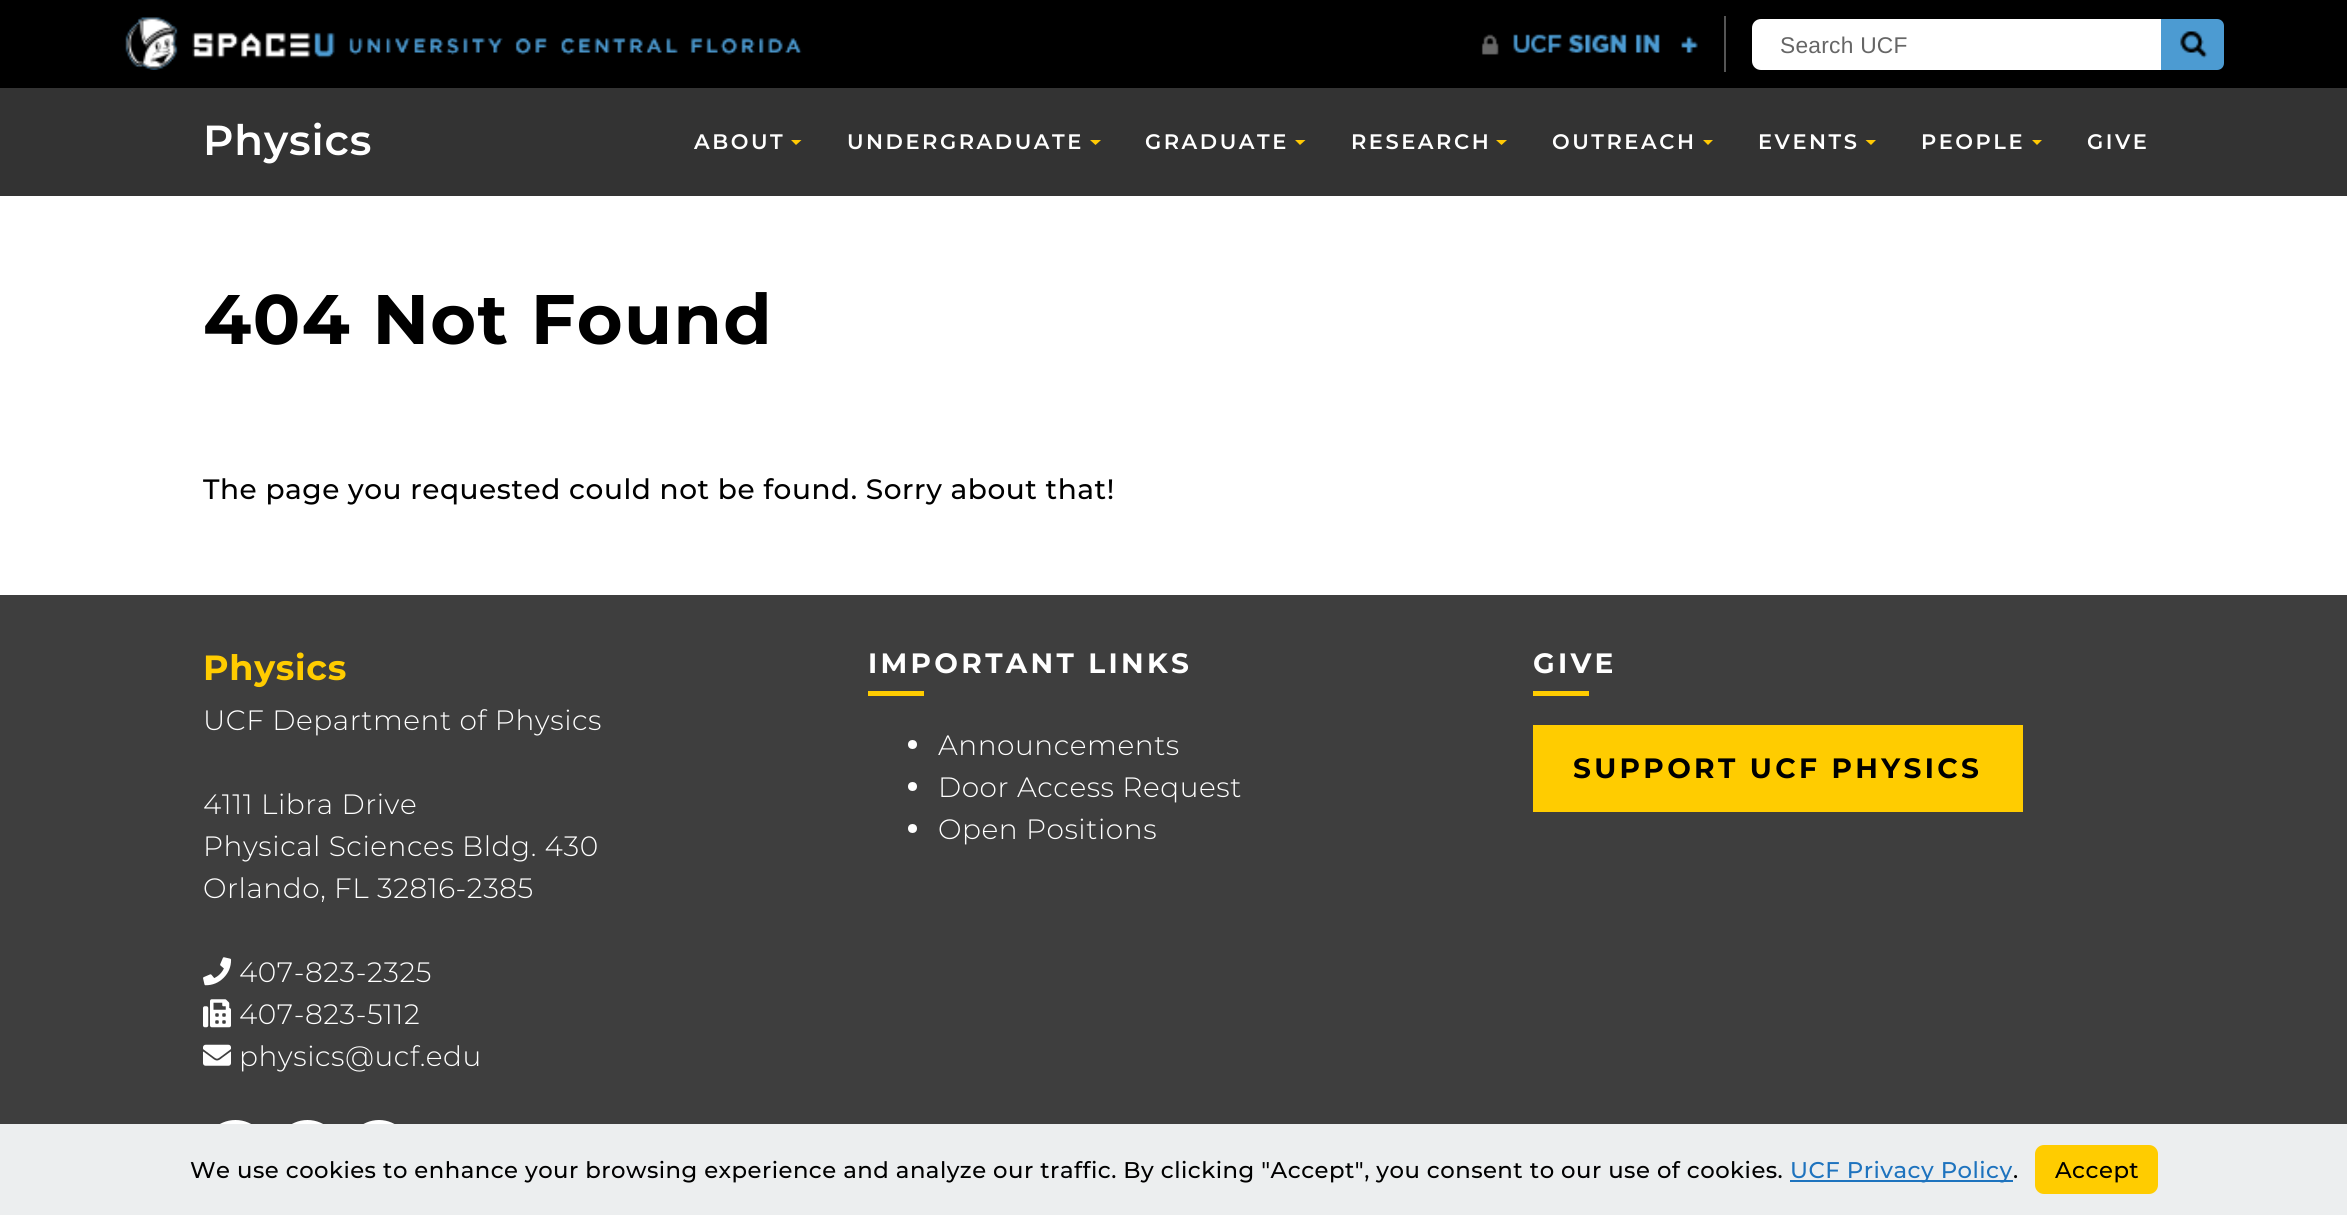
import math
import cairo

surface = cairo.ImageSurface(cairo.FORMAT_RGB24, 2347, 1215)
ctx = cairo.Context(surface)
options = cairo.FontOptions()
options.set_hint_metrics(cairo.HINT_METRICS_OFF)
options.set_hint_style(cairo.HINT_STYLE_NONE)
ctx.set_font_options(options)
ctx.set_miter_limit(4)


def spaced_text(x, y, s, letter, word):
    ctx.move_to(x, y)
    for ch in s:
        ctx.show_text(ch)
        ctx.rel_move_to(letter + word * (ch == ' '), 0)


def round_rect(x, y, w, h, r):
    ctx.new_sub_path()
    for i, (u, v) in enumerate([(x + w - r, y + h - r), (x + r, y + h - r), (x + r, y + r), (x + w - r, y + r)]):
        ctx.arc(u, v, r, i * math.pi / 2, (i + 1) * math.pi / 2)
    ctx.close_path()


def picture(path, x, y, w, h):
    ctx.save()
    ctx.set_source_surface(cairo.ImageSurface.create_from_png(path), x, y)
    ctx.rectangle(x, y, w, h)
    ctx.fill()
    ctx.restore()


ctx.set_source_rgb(1, 1, 1)
ctx.paint()
ctx.set_source_rgb(0, 0, 0)
ctx.rectangle(0, 0, 2347, 88)
ctx.fill()
picture("img1.png", 125, 17, 677, 53)
picture("img2.png", 1481, 34, 217, 21)
ctx.set_source_rgb(0.333, 0.333, 0.333)
ctx.rectangle(1724, 16, 2, 56)
ctx.fill()
ctx.set_source_rgb(1, 1, 1)
ctx.new_path()
ctx.move_to(1761, 20)
ctx.line_to(2215, 20)
ctx.line_to(2215, 69)
ctx.line_to(1761, 69)
ctx.curve_to(1756.5, 69, 1753, 65.5, 1753, 61)
ctx.line_to(1753, 28)
ctx.curve_to(1753, 23.5, 1756.5, 20, 1761, 20)
ctx.close_path()
ctx.fill_preserve()
ctx.stroke()
ctx.select_font_face("Liberation Sans")
ctx.set_font_size(22.75)
ctx.set_source_rgb(0.4, 0.4, 0.4)
spaced_text(1780, 53, "Search UCF", 0.25, 0)
ctx.set_source_rgb(0.298, 0.608, 0.824)
ctx.new_path()
ctx.move_to(2161, 19)
ctx.line_to(2217, 19)
ctx.curve_to(2221, 19, 2224, 22, 2224, 26)
ctx.line_to(2224, 63)
ctx.curve_to(2224, 67, 2221, 70, 2217, 70)
ctx.line_to(2161, 70)
ctx.close_path()
ctx.fill()
picture("img3.png", 2180, 31, 28, 27)
ctx.set_source_rgb(0.2, 0.2, 0.2)
ctx.rectangle(0, 88, 2347, 108)
ctx.fill()
ctx.select_font_face("Montserrat SemiBold")
ctx.set_font_size(42)
ctx.set_source_rgb(1, 1, 1)
ctx.move_to(203, 155)
ctx.show_text("Physics")
ctx.set_font_size(21)
spaced_text(694, 149, "ABOUT", 2.1, 0)
ctx.set_source_rgb(1, 0.788, 0.016)
ctx.new_path()
ctx.move_to(791, 140)
ctx.line_to(801.5, 140)
ctx.line_to(796, 145)
ctx.close_path()
ctx.fill()
ctx.set_source_rgb(1, 1, 1)
spaced_text(847, 149, "UNDERGRADUATE", 2.1, 0)
ctx.set_source_rgb(1, 0.788, 0.016)
ctx.new_path()
ctx.move_to(1090, 140)
ctx.line_to(1101, 140)
ctx.line_to(1095.5, 145)
ctx.close_path()
ctx.fill()
ctx.set_source_rgb(1, 1, 1)
spaced_text(1145, 149, "GRADUATE", 2.1, 0)
ctx.set_source_rgb(1, 0.788, 0.016)
ctx.new_path()
ctx.move_to(1295, 140)
ctx.line_to(1305.5, 140)
ctx.line_to(1300, 145)
ctx.close_path()
ctx.fill()
ctx.set_source_rgb(1, 1, 1)
spaced_text(1351, 149, "RESEARCH", 2.1, 0)
ctx.set_source_rgb(1, 0.788, 0.016)
ctx.new_path()
ctx.move_to(1496, 140)
ctx.line_to(1507, 140)
ctx.line_to(1501.5, 145)
ctx.close_path()
ctx.fill()
ctx.set_source_rgb(1, 1, 1)
spaced_text(1552, 149, "OUTREACH", 2.1, 0)
ctx.set_source_rgb(1, 0.788, 0.016)
ctx.new_path()
ctx.move_to(1703, 140)
ctx.line_to(1713, 140)
ctx.line_to(1708, 145)
ctx.close_path()
ctx.fill()
ctx.set_source_rgb(1, 1, 1)
spaced_text(1758, 149, "EVENTS", 2.1, 0)
ctx.set_source_rgb(1, 0.788, 0.016)
ctx.new_path()
ctx.move_to(1865.5, 140)
ctx.line_to(1876, 140)
ctx.line_to(1871, 145)
ctx.close_path()
ctx.fill()
ctx.set_source_rgb(1, 1, 1)
spaced_text(1921, 149, "PEOPLE", 2.1, 0)
ctx.set_source_rgb(1, 0.788, 0.016)
ctx.new_path()
ctx.move_to(2032, 140)
ctx.line_to(2042, 140)
ctx.line_to(2037, 145)
ctx.close_path()
ctx.fill()
ctx.set_source_rgb(1, 1, 1)
spaced_text(2087, 149, "GIVE", 2.1, 0)
ctx.select_font_face("Montserrat", cairo.FONT_SLANT_NORMAL, cairo.FONT_WEIGHT_BOLD)
ctx.set_font_size(70)
ctx.set_source_rgb(0, 0, 0)
ctx.move_to(203, 344)
ctx.show_text("404 Not Found")
ctx.select_font_face("Montserrat Medium")
ctx.set_font_size(28)
ctx.move_to(203, 499)
ctx.show_text("The page you requested could not be found. Sorry about that!")
ctx.set_source_rgb(0.243, 0.243, 0.243)
ctx.rectangle(0, 595, 2347, 529)
ctx.fill()
ctx.select_font_face("Montserrat", cairo.FONT_SLANT_NORMAL, cairo.FONT_WEIGHT_BOLD)
ctx.set_font_size(35)
ctx.set_source_rgb(1, 0.8, 0)
ctx.move_to(203, 680)
ctx.show_text("Physics")
ctx.select_font_face("Montserrat Light")
ctx.set_font_size(28)
ctx.set_source_rgb(1, 1, 1)
ctx.move_to(203, 730)
ctx.show_text("UCF Department of Physics")
ctx.move_to(203, 814)
ctx.show_text("4111 Libra Drive")
ctx.move_to(203, 856)
ctx.show_text("Physical Sciences Bldg. 430")
ctx.move_to(203, 898)
ctx.show_text("Orlando, FL 32816-2385")
picture("img4.png", 203, 957, 29, 29)
ctx.move_to(239, 982)
ctx.show_text("407-823-2325")
picture("img5.png", 203, 999, 28, 29)
ctx.move_to(239, 1024)
ctx.show_text("407-823-5112")
picture("img6.png", 203, 1044, 28, 22)
ctx.move_to(239, 1066)
ctx.show_text("physics@ucf.edu")
ctx.new_path()
ctx.arc(235.5, 1152.5, 32.5, 0, 2 * math.pi)
ctx.fill()
ctx.arc(307.5, 1152.5, 32.5, 0, 2 * math.pi)
ctx.fill()
round_rect(347, 1120, 64, 65, 32)
ctx.fill()
ctx.select_font_face("Montserrat", cairo.FONT_SLANT_NORMAL, cairo.FONT_WEIGHT_BOLD)
spaced_text(868, 673, "IMPORTANT LINKS", 2.75, 0)
ctx.set_source_rgb(1, 0.8, 0)
ctx.rectangle(868, 691, 56, 5)
ctx.fill()
ctx.set_source_rgb(1, 1, 1)
ctx.arc(912.5, 744.5, 4.5, 0, 2 * math.pi)
ctx.fill()
ctx.select_font_face("Montserrat Light")
ctx.move_to(938, 755)
ctx.show_text("Announcements")
ctx.new_path()
ctx.arc(912.5, 786.5, 4.5, 0, 2 * math.pi)
ctx.fill()
ctx.move_to(938, 797)
ctx.show_text("Door Access Request")
ctx.new_path()
ctx.arc(912.5, 828.5, 4.5, 0, 2 * math.pi)
ctx.fill()
ctx.move_to(938, 839)
ctx.show_text("Open Positions")
ctx.select_font_face("Montserrat", cairo.FONT_SLANT_NORMAL, cairo.FONT_WEIGHT_BOLD)
spaced_text(1533, 673, "GIVE", 2.75, 0)
ctx.set_source_rgb(1, 0.8, 0)
ctx.rectangle(1533, 691, 56, 5)
ctx.fill()
ctx.rectangle(1533, 725, 490, 87)
ctx.fill()
ctx.set_source_rgb(0, 0, 0)
spaced_text(1573, 778, "SUPPORT UCF PHYSICS", 2.75, 0)
ctx.set_source_rgb(0.925, 0.933, 0.937)
ctx.rectangle(0, 1124, 2347, 91)
ctx.fill()
ctx.select_font_face("Montserrat Medium")
ctx.set_font_size(22.75)
ctx.set_source_rgb(0, 0, 0)
ctx.move_to(190, 1178)
ctx.show_text("We use cookies to enhance your browsing experience and analyze our traffic. By clicking \"Accept\", you consent to our use of cookies.")
ctx.set_source_rgb(0.118, 0.451, 0.745)
ctx.rectangle(1790, 1180, 223, 2)
ctx.fill()
ctx.move_to(1790, 1178)
ctx.show_text("UCF Privacy Policy")
ctx.set_source_rgb(0, 0, 0)
ctx.move_to(2013, 1178)
ctx.show_text(".")
ctx.set_source_rgb(1, 0.8, 0)
round_rect(2036, 1146, 121, 47, 8)
ctx.fill_preserve()
ctx.stroke()
ctx.set_source_rgb(0, 0, 0)
ctx.move_to(2055, 1178)
ctx.show_text("Accept")
surface.write_to_png("page.png")
